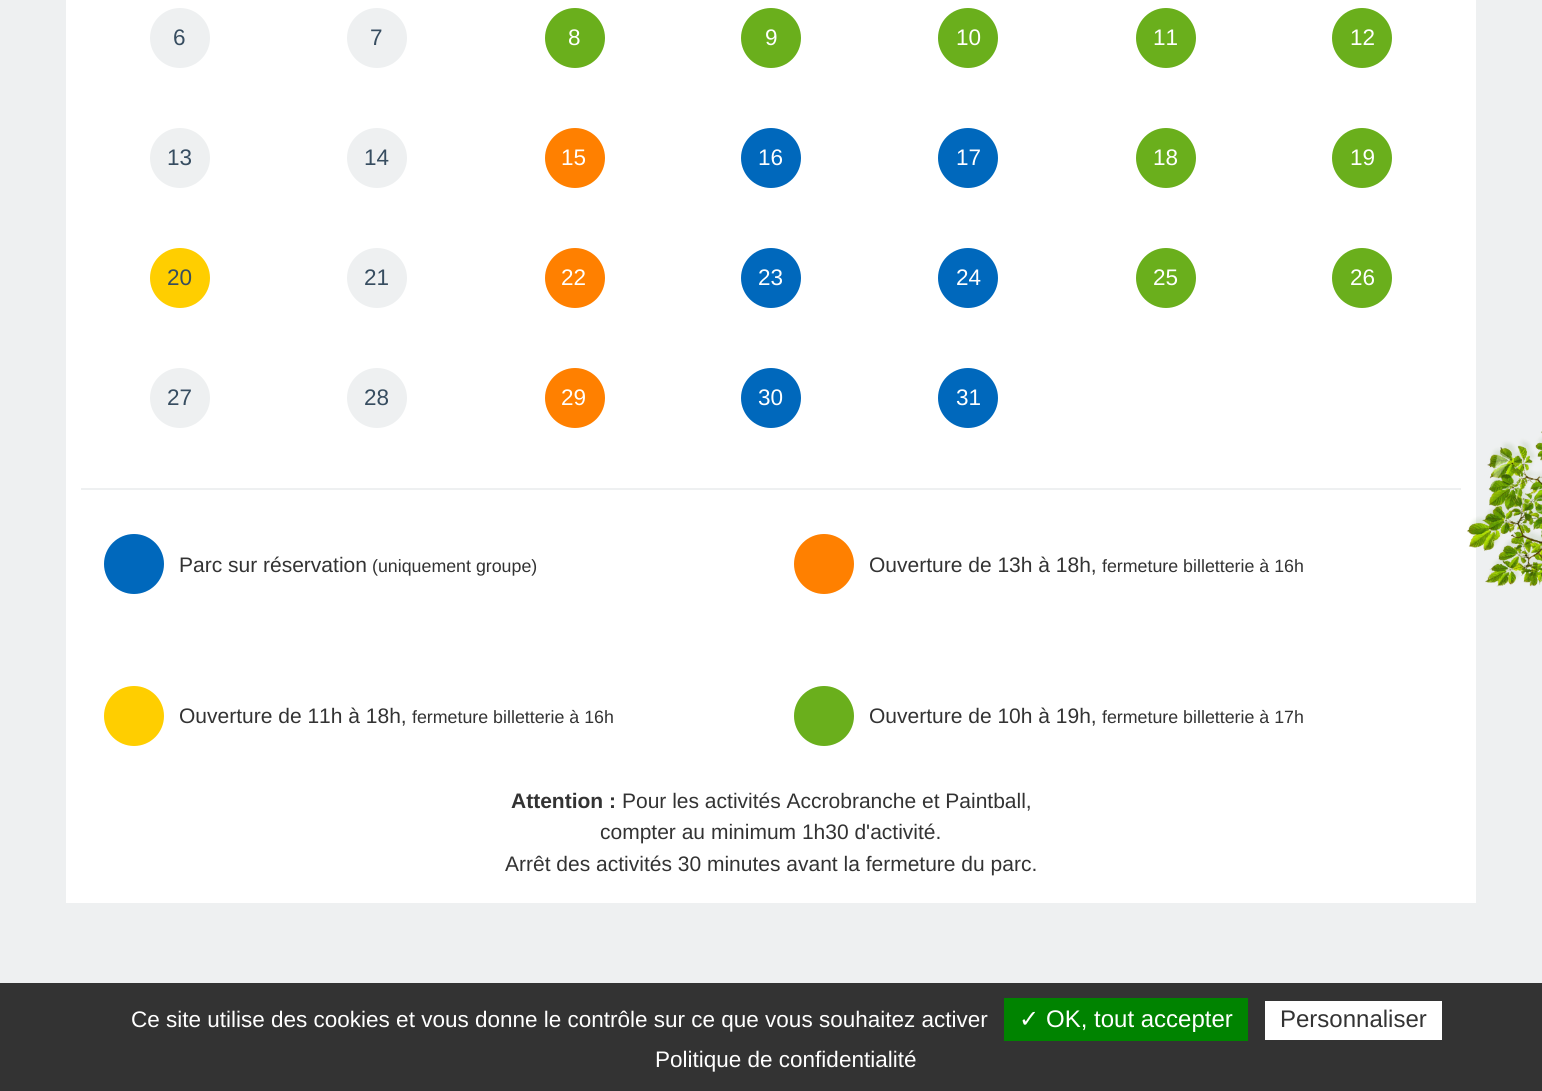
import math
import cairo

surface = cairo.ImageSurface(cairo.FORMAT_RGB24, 1542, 1091)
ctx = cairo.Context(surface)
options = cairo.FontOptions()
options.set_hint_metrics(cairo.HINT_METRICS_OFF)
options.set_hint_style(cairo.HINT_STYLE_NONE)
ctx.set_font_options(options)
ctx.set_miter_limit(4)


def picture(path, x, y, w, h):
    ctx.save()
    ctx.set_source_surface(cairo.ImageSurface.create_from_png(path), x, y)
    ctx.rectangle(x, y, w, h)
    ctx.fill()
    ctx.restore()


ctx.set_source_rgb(0.933, 0.941, 0.945)
ctx.paint()
ctx.set_source_rgb(1, 1, 1)
ctx.rectangle(66, 0, 1410, 903)
ctx.fill()
ctx.set_source_rgb(0.933, 0.941, 0.945)
ctx.arc(180, 38, 30, 0, 2 * math.pi)
ctx.fill()
ctx.select_font_face("Liberation Sans")
ctx.set_font_size(22.5)
ctx.set_source_rgb(0.216, 0.302, 0.376)
ctx.move_to(173, 45)
ctx.show_text("6")
ctx.set_source_rgb(0.933, 0.941, 0.945)
ctx.new_path()
ctx.arc(377, 38, 30, 0, 2 * math.pi)
ctx.fill()
ctx.set_source_rgb(0.216, 0.302, 0.376)
ctx.move_to(370, 45)
ctx.show_text("7")
ctx.set_source_rgb(0.416, 0.686, 0.11)
ctx.new_path()
ctx.arc(575, 38, 30, 0, 2 * math.pi)
ctx.fill()
ctx.set_source_rgb(1, 1, 1)
ctx.move_to(568, 45)
ctx.show_text("8")
ctx.set_source_rgb(0.416, 0.686, 0.11)
ctx.new_path()
ctx.arc(771, 38, 30, 0, 2 * math.pi)
ctx.fill()
ctx.set_source_rgb(1, 1, 1)
ctx.move_to(765, 45)
ctx.show_text("9")
ctx.set_source_rgb(0.416, 0.686, 0.11)
ctx.new_path()
ctx.arc(968, 38, 30, 0, 2 * math.pi)
ctx.fill()
ctx.set_source_rgb(1, 1, 1)
ctx.move_to(956, 45)
ctx.show_text("10")
ctx.set_source_rgb(0.416, 0.686, 0.11)
ctx.new_path()
ctx.arc(1166, 38, 30, 0, 2 * math.pi)
ctx.fill()
ctx.set_source_rgb(1, 1, 1)
ctx.move_to(1153, 45)
ctx.show_text("11")
ctx.set_source_rgb(0.416, 0.686, 0.11)
ctx.new_path()
ctx.arc(1362, 38, 30, 0, 2 * math.pi)
ctx.fill()
ctx.set_source_rgb(1, 1, 1)
ctx.move_to(1350, 45)
ctx.show_text("12")
ctx.set_source_rgb(0.933, 0.941, 0.945)
ctx.new_path()
ctx.arc(180, 158, 30, 0, 2 * math.pi)
ctx.fill()
ctx.set_source_rgb(0.216, 0.302, 0.376)
ctx.move_to(167, 165)
ctx.show_text("13")
ctx.set_source_rgb(0.933, 0.941, 0.945)
ctx.new_path()
ctx.arc(377, 158, 30, 0, 2 * math.pi)
ctx.fill()
ctx.set_source_rgb(0.216, 0.302, 0.376)
ctx.move_to(364, 165)
ctx.show_text("14")
ctx.set_source_rgb(1, 0.502, 0)
ctx.new_path()
ctx.arc(575, 158, 30, 0, 2 * math.pi)
ctx.fill()
ctx.set_source_rgb(1, 1, 1)
ctx.move_to(561, 165)
ctx.show_text("15")
ctx.set_source_rgb(0, 0.408, 0.737)
ctx.new_path()
ctx.arc(771, 158, 30, 0, 2 * math.pi)
ctx.fill()
ctx.set_source_rgb(1, 1, 1)
ctx.move_to(758, 165)
ctx.show_text("16")
ctx.set_source_rgb(0, 0.408, 0.737)
ctx.new_path()
ctx.arc(968, 158, 30, 0, 2 * math.pi)
ctx.fill()
ctx.set_source_rgb(1, 1, 1)
ctx.move_to(956, 165)
ctx.show_text("17")
ctx.set_source_rgb(0.416, 0.686, 0.11)
ctx.new_path()
ctx.arc(1166, 158, 30, 0, 2 * math.pi)
ctx.fill()
ctx.set_source_rgb(1, 1, 1)
ctx.move_to(1153, 165)
ctx.show_text("18")
ctx.set_source_rgb(0.416, 0.686, 0.11)
ctx.new_path()
ctx.arc(1362, 158, 30, 0, 2 * math.pi)
ctx.fill()
ctx.set_source_rgb(1, 1, 1)
ctx.move_to(1350, 165)
ctx.show_text("19")
ctx.set_source_rgb(1, 0.808, 0)
ctx.new_path()
ctx.arc(180, 278, 30, 0, 2 * math.pi)
ctx.fill()
ctx.set_source_rgb(0.216, 0.302, 0.376)
ctx.move_to(167, 285)
ctx.show_text("20")
ctx.set_source_rgb(0.933, 0.941, 0.945)
ctx.new_path()
ctx.arc(377, 278, 30, 0, 2 * math.pi)
ctx.fill()
ctx.set_source_rgb(0.216, 0.302, 0.376)
ctx.move_to(364, 285)
ctx.show_text("21")
ctx.set_source_rgb(1, 0.502, 0)
ctx.new_path()
ctx.arc(575, 278, 30, 0, 2 * math.pi)
ctx.fill()
ctx.set_source_rgb(1, 1, 1)
ctx.move_to(561, 285)
ctx.show_text("22")
ctx.set_source_rgb(0, 0.408, 0.737)
ctx.new_path()
ctx.arc(771, 278, 30, 0, 2 * math.pi)
ctx.fill()
ctx.set_source_rgb(1, 1, 1)
ctx.move_to(758, 285)
ctx.show_text("23")
ctx.set_source_rgb(0, 0.408, 0.737)
ctx.new_path()
ctx.arc(968, 278, 30, 0, 2 * math.pi)
ctx.fill()
ctx.set_source_rgb(1, 1, 1)
ctx.move_to(956, 285)
ctx.show_text("24")
ctx.set_source_rgb(0.416, 0.686, 0.11)
ctx.new_path()
ctx.arc(1166, 278, 30, 0, 2 * math.pi)
ctx.fill()
ctx.set_source_rgb(1, 1, 1)
ctx.move_to(1153, 285)
ctx.show_text("25")
ctx.set_source_rgb(0.416, 0.686, 0.11)
ctx.new_path()
ctx.arc(1362, 278, 30, 0, 2 * math.pi)
ctx.fill()
ctx.set_source_rgb(1, 1, 1)
ctx.move_to(1350, 285)
ctx.show_text("26")
ctx.set_source_rgb(0.933, 0.941, 0.945)
ctx.new_path()
ctx.arc(180, 398, 30, 0, 2 * math.pi)
ctx.fill()
ctx.set_source_rgb(0.216, 0.302, 0.376)
ctx.move_to(167, 405)
ctx.show_text("27")
ctx.set_source_rgb(0.933, 0.941, 0.945)
ctx.new_path()
ctx.arc(377, 398, 30, 0, 2 * math.pi)
ctx.fill()
ctx.set_source_rgb(0.216, 0.302, 0.376)
ctx.move_to(364, 405)
ctx.show_text("28")
ctx.set_source_rgb(1, 0.502, 0)
ctx.new_path()
ctx.arc(575, 398, 30, 0, 2 * math.pi)
ctx.fill()
ctx.set_source_rgb(1, 1, 1)
ctx.move_to(561, 405)
ctx.show_text("29")
ctx.set_source_rgb(0, 0.408, 0.737)
ctx.new_path()
ctx.arc(771, 398, 30, 0, 2 * math.pi)
ctx.fill()
ctx.set_source_rgb(1, 1, 1)
ctx.move_to(758, 405)
ctx.show_text("30")
ctx.set_source_rgb(0, 0.408, 0.737)
ctx.new_path()
ctx.arc(968, 398, 30, 0, 2 * math.pi)
ctx.fill()
ctx.set_source_rgb(1, 1, 1)
ctx.move_to(956, 405)
ctx.show_text("31")
ctx.set_source_rgb(0.933, 0.941, 0.945)
ctx.rectangle(81, 488, 1380, 2)
ctx.fill()
ctx.set_source_rgb(0, 0.408, 0.737)
ctx.arc(134, 564, 30, 0, 2 * math.pi)
ctx.fill()
ctx.set_font_size(21)
ctx.set_source_rgb(0.2, 0.2, 0.2)
ctx.move_to(179, 572)
ctx.show_text("Parc sur réservation")
ctx.set_font_size(17.8)
ctx.move_to(372, 572)
ctx.show_text("(uniquement groupe)")
ctx.set_source_rgb(1, 0.502, 0)
ctx.new_path()
ctx.arc(824, 564, 30, 0, 2 * math.pi)
ctx.fill()
ctx.set_font_size(21)
ctx.set_source_rgb(0.2, 0.2, 0.2)
ctx.move_to(869, 572)
ctx.show_text("Ouverture de 13h à 18h,")
ctx.set_font_size(17.8)
ctx.move_to(1102, 572)
ctx.show_text("fermeture billetterie à 16h")
ctx.set_source_rgb(1, 0.808, 0)
ctx.new_path()
ctx.arc(134, 716, 30, 0, 2 * math.pi)
ctx.fill()
ctx.set_font_size(21)
ctx.set_source_rgb(0.2, 0.2, 0.2)
ctx.move_to(179, 723)
ctx.show_text("Ouverture de 11h à 18h,")
ctx.set_font_size(17.8)
ctx.move_to(412, 723)
ctx.show_text("fermeture billetterie à 16h")
ctx.set_source_rgb(0.416, 0.686, 0.11)
ctx.new_path()
ctx.arc(824, 716, 30, 0, 2 * math.pi)
ctx.fill()
ctx.set_font_size(21)
ctx.set_source_rgb(0.2, 0.2, 0.2)
ctx.move_to(869, 723)
ctx.show_text("Ouverture de 10h à 19h,")
ctx.set_font_size(17.8)
ctx.move_to(1102, 723)
ctx.show_text("fermeture billetterie à 17h")
ctx.select_font_face("Liberation Sans", cairo.FONT_SLANT_NORMAL, cairo.FONT_WEIGHT_BOLD)
ctx.set_font_size(21)
ctx.move_to(511, 808)
ctx.show_text("Attention :")
ctx.select_font_face("Liberation Sans")
ctx.move_to(622, 808)
ctx.show_text("Pour les activités Accrobranche et Paintball,")
ctx.move_to(600, 839)
ctx.show_text("compter au minimum 1h30 d'activité.")
ctx.move_to(505, 871)
ctx.show_text("Arrêt des activités 30 minutes avant la fermeture du parc.")
picture("img1.png", 1467, 431, 75, 156)
ctx.rectangle(0, 983, 1542, 108)
ctx.fill()
ctx.set_font_size(22.5)
ctx.set_source_rgb(1, 1, 1)
ctx.move_to(131, 1027)
ctx.show_text("Ce site utilise des cookies et vous donne le contrôle sur ce que vous souhaitez activer")
ctx.set_source_rgb(0, 0.514, 0)
ctx.rectangle(1004, 998, 244, 43)
ctx.fill()
ctx.select_font_face("DejaVu Sans")
ctx.set_font_size(24)
ctx.set_source_rgb(1, 1, 1)
ctx.move_to(1019, 1027)
ctx.show_text("✓")
ctx.select_font_face("Liberation Sans")
ctx.move_to(1046, 1027)
ctx.show_text("OK, tout accepter")
ctx.rectangle(1265, 1001, 177, 39)
ctx.fill()
ctx.set_source_rgb(0.2, 0.2, 0.2)
ctx.move_to(1280, 1027)
ctx.show_text("Personnaliser")
ctx.set_font_size(22.5)
ctx.set_source_rgb(1, 1, 1)
ctx.move_to(655, 1067)
ctx.show_text("Politique de confidentialité")
surface.write_to_png("page.png")
